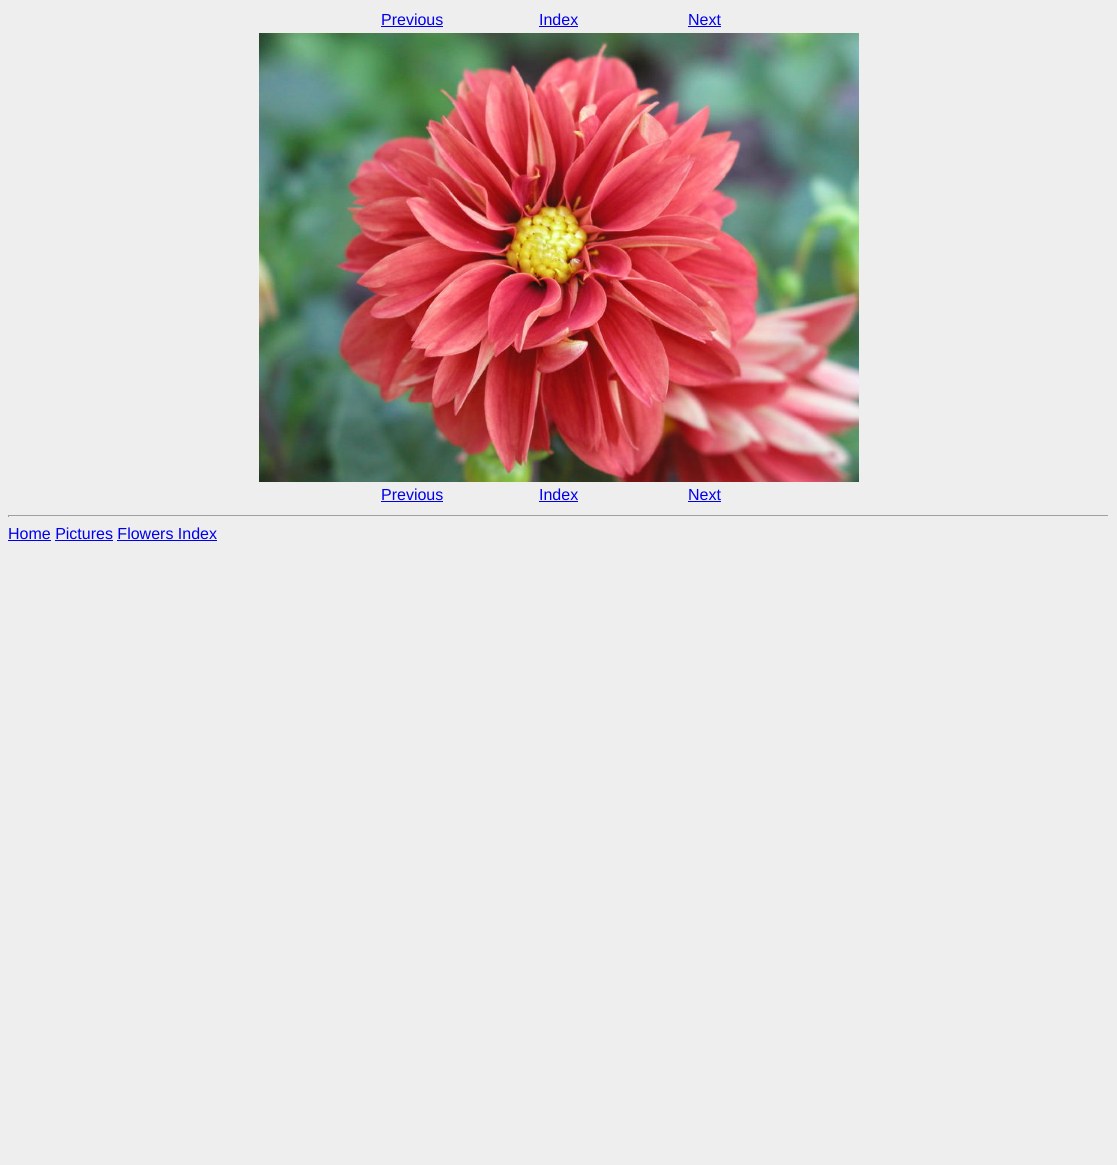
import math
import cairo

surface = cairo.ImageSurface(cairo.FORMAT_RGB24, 1117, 1165)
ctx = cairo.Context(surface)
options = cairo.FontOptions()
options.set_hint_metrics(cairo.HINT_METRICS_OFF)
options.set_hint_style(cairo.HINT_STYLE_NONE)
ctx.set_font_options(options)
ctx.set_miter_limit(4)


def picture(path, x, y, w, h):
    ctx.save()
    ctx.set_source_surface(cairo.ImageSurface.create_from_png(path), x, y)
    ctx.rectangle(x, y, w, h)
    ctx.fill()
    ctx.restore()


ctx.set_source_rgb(0.933, 0.933, 0.933)
ctx.paint()
ctx.select_font_face("Liberation Sans")
ctx.set_font_size(16)
ctx.set_source_rgb(0, 0, 0.933)
ctx.move_to(381, 25)
ctx.show_text("Previous")
ctx.rectangle(381, 26, 62, 1)
ctx.fill()
ctx.move_to(539, 25)
ctx.show_text("Index")
ctx.rectangle(539, 26, 39, 1)
ctx.fill()
ctx.move_to(688, 25)
ctx.show_text("Next")
ctx.rectangle(688, 26, 33, 1)
ctx.fill()
picture("img1.png", 259, 33, 600, 449)
ctx.move_to(381, 500)
ctx.show_text("Previous")
ctx.rectangle(381, 501, 62, 1)
ctx.fill()
ctx.move_to(539, 500)
ctx.show_text("Index")
ctx.rectangle(539, 501, 39, 1)
ctx.fill()
ctx.move_to(688, 500)
ctx.show_text("Next")
ctx.rectangle(688, 501, 33, 1)
ctx.fill()
ctx.set_source_rgb(0.624, 0.624, 0.624)
ctx.rectangle(8, 515, 1101, 1)
ctx.fill()
ctx.set_source_rgb(0.933, 0.933, 0.933)
ctx.rectangle(1108, 515, 1, 2)
ctx.fill()
ctx.set_source_rgb(0.624, 0.624, 0.624)
ctx.rectangle(8, 515, 1, 2)
ctx.fill()
ctx.set_source_rgb(0, 0, 0.933)
ctx.move_to(8, 539)
ctx.show_text("Home Pictures Flowers Index")
ctx.rectangle(8, 540, 43, 1)
ctx.fill()
ctx.rectangle(55, 540, 58, 1)
ctx.fill()
ctx.rectangle(117, 540, 100, 1)
ctx.fill()
surface.write_to_png("page.png")
